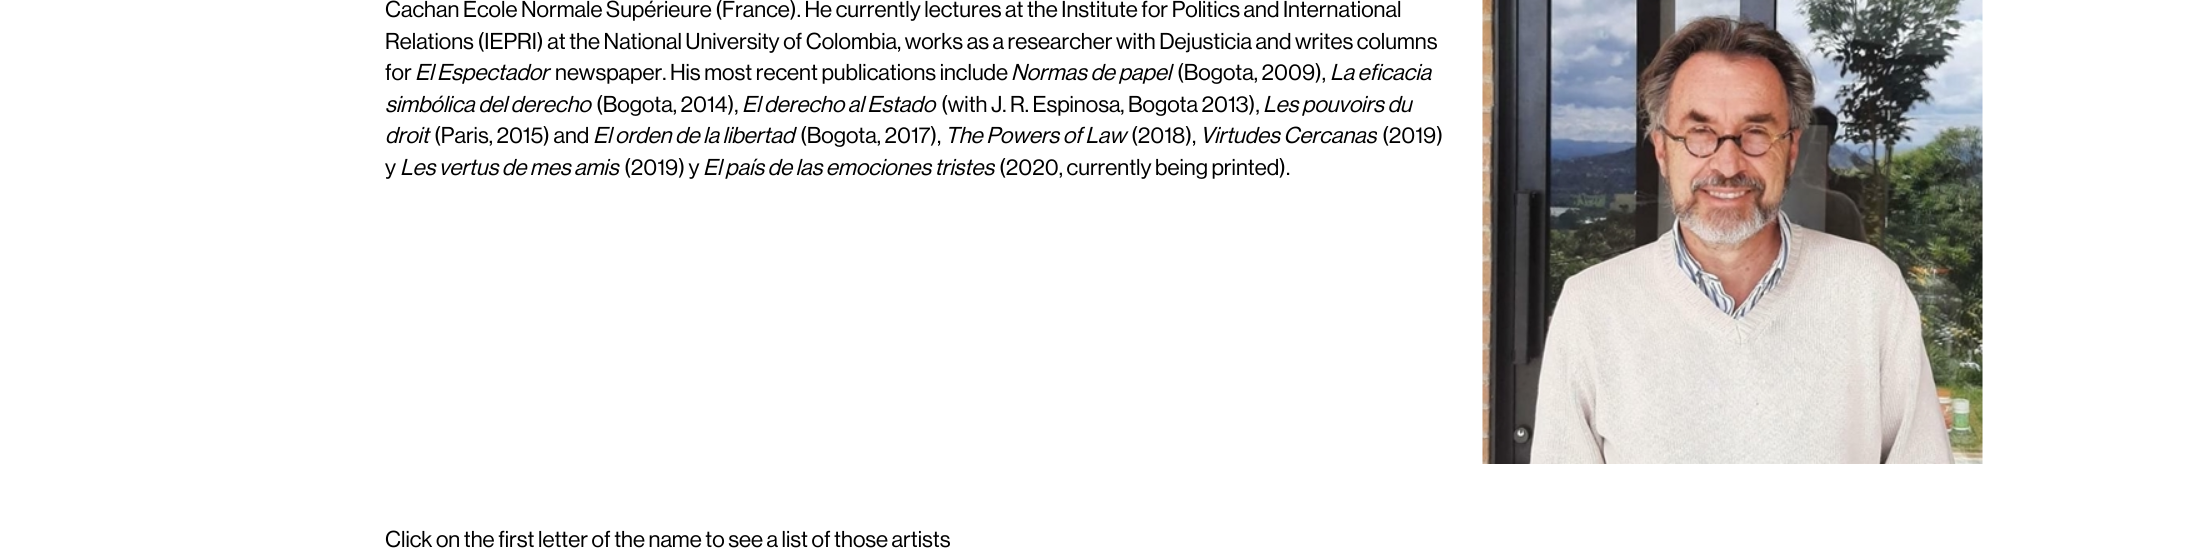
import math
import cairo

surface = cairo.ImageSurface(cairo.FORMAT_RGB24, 2195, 557)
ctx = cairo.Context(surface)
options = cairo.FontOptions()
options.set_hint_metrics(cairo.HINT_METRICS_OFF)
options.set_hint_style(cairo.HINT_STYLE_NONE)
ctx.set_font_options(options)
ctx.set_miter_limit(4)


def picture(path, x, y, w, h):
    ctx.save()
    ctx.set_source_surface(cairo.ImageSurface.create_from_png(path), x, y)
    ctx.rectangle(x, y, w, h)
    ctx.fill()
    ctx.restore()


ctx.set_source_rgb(1, 1, 1)
ctx.paint()
ctx.select_font_face("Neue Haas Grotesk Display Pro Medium")
ctx.set_font_size(22.5)
ctx.set_source_rgb(0, 0, 0)
ctx.move_to(385, 17)
ctx.show_text("Cachan École Normale Supérieure (France). He currently lectures at the Institute for Politics and International")
ctx.move_to(385, 49)
ctx.show_text("Relations (IEPRI) at the National University of Colombia, works as a researcher with Dejusticia and writes columns")
ctx.move_to(385, 80)
ctx.show_text("for")
ctx.select_font_face("Neue Haas Grotesk Display Pro Medium", cairo.FONT_SLANT_ITALIC)
ctx.move_to(415, 80)
ctx.show_text("El Espectador")
ctx.select_font_face("Neue Haas Grotesk Display Pro Medium")
ctx.move_to(555, 80)
ctx.show_text("newspaper. His most recent publications include")
ctx.select_font_face("Neue Haas Grotesk Display Pro Medium", cairo.FONT_SLANT_ITALIC)
ctx.move_to(1011, 80)
ctx.show_text("Normas de papel")
ctx.select_font_face("Neue Haas Grotesk Display Pro Medium")
ctx.move_to(1177, 80)
ctx.show_text("(Bogota, 2009),")
ctx.select_font_face("Neue Haas Grotesk Display Pro Medium", cairo.FONT_SLANT_ITALIC)
ctx.move_to(1330, 80)
ctx.show_text("La eficacia")
ctx.move_to(385, 112)
ctx.show_text("simbólica del derecho")
ctx.select_font_face("Neue Haas Grotesk Display Pro Medium")
ctx.move_to(596, 112)
ctx.show_text("(Bogota, 2014),")
ctx.select_font_face("Neue Haas Grotesk Display Pro Medium", cairo.FONT_SLANT_ITALIC)
ctx.move_to(742, 112)
ctx.show_text("El derecho al Estado")
ctx.select_font_face("Neue Haas Grotesk Display Pro Medium")
ctx.move_to(941, 112)
ctx.show_text("(with J. R. Espinosa, Bogota 2013),")
ctx.select_font_face("Neue Haas Grotesk Display Pro Medium", cairo.FONT_SLANT_ITALIC)
ctx.move_to(1263, 112)
ctx.show_text("Les pouvoirs du")
ctx.move_to(385, 143)
ctx.show_text("droit")
ctx.select_font_face("Neue Haas Grotesk Display Pro Medium")
ctx.move_to(434, 143)
ctx.show_text("(Paris, 2015) and")
ctx.select_font_face("Neue Haas Grotesk Display Pro Medium", cairo.FONT_SLANT_ITALIC)
ctx.move_to(593, 143)
ctx.show_text("El orden de la libertad")
ctx.select_font_face("Neue Haas Grotesk Display Pro Medium")
ctx.move_to(800, 143)
ctx.show_text("(Bogota, 2017),")
ctx.select_font_face("Neue Haas Grotesk Display Pro Medium", cairo.FONT_SLANT_ITALIC)
ctx.move_to(945, 143)
ctx.show_text("The Powers of Law")
ctx.select_font_face("Neue Haas Grotesk Display Pro Medium")
ctx.move_to(1131, 143)
ctx.show_text("(2018),")
ctx.select_font_face("Neue Haas Grotesk Display Pro Medium", cairo.FONT_SLANT_ITALIC)
ctx.move_to(1200, 143)
ctx.show_text("Virtudes Cercanas")
ctx.select_font_face("Neue Haas Grotesk Display Pro Medium")
ctx.move_to(1382, 143)
ctx.show_text("(2019)")
ctx.move_to(385, 175)
ctx.show_text("y")
ctx.select_font_face("Neue Haas Grotesk Display Pro Medium", cairo.FONT_SLANT_ITALIC)
ctx.move_to(400, 175)
ctx.show_text("Les vertus de mes amis")
ctx.select_font_face("Neue Haas Grotesk Display Pro Medium")
ctx.move_to(624, 175)
ctx.show_text("(2019) y")
ctx.select_font_face("Neue Haas Grotesk Display Pro Medium", cairo.FONT_SLANT_ITALIC)
ctx.move_to(703, 175)
ctx.show_text("El país de las emociones tristes")
ctx.select_font_face("Neue Haas Grotesk Display Pro Medium")
ctx.move_to(999, 175)
ctx.show_text("(2020, currently being printed).")
picture("img1.png", 1482, 0, 501, 464)
ctx.move_to(385, 547)
ctx.show_text("Click on the first letter of the name to see a list of those artists")
surface.write_to_png("page.png")
